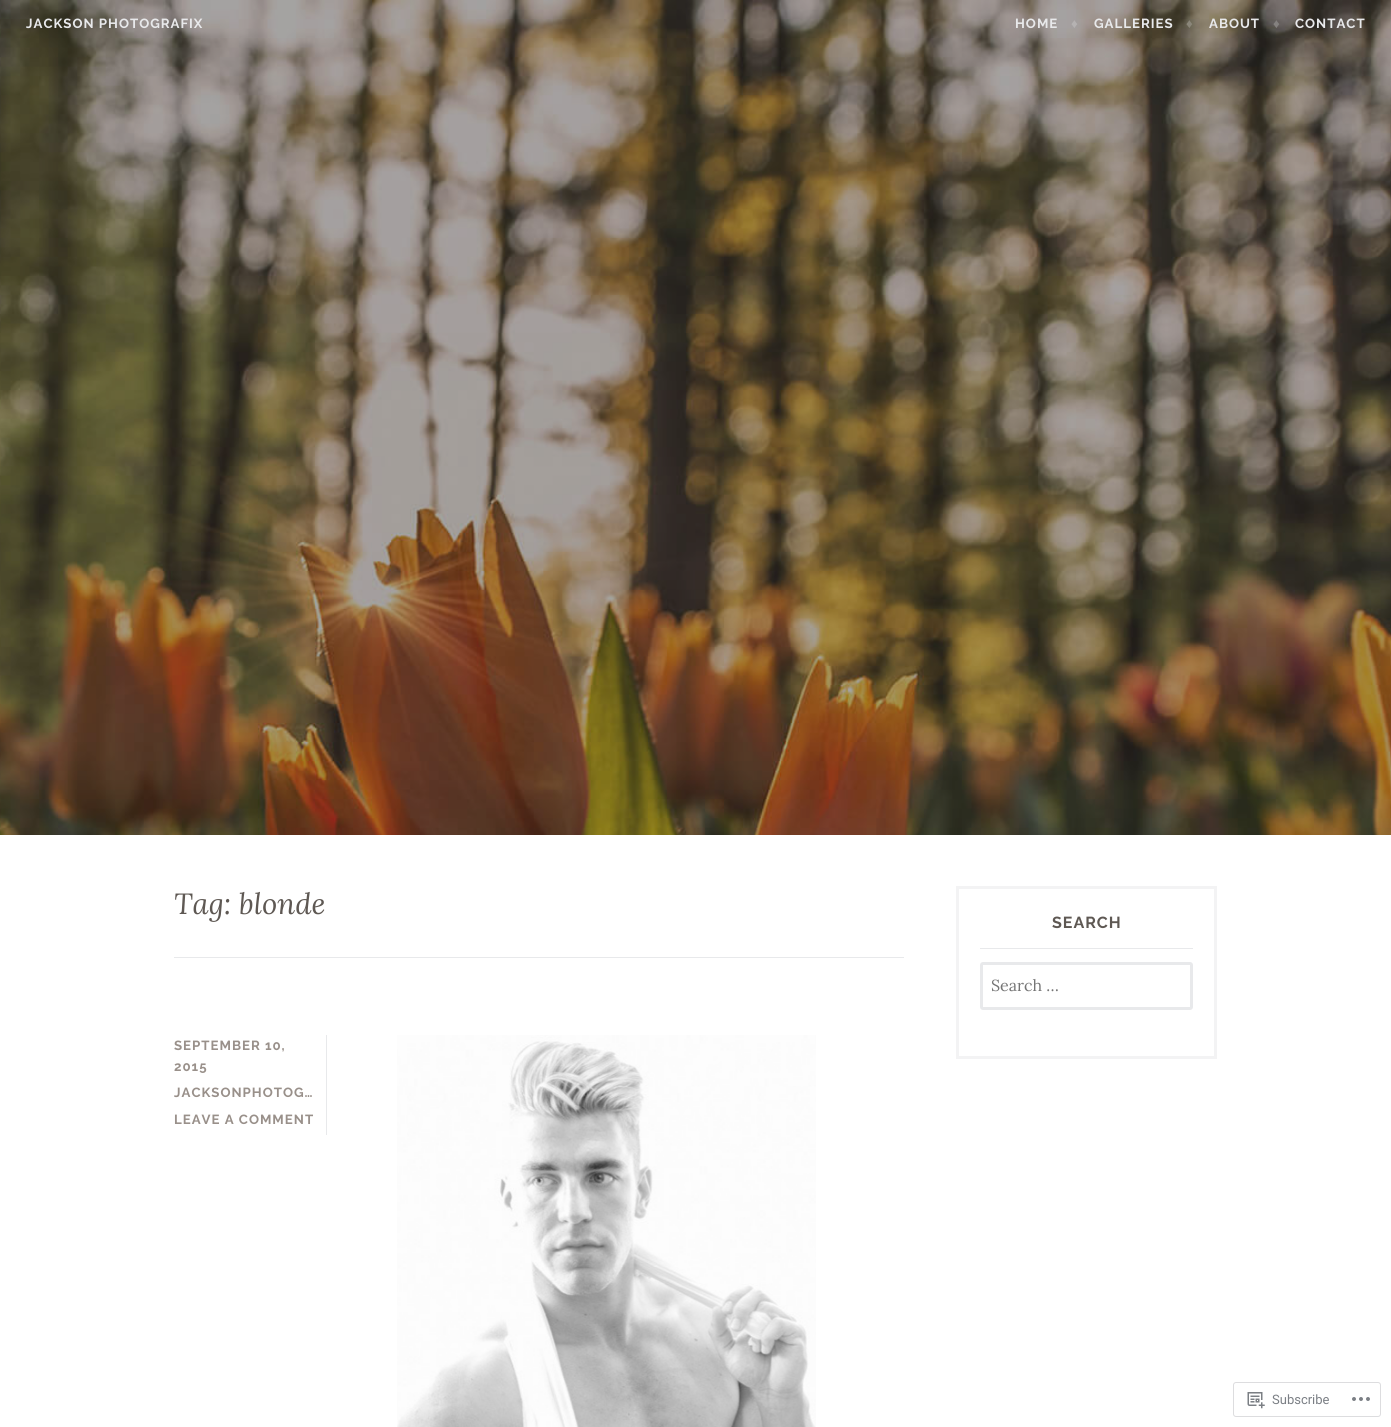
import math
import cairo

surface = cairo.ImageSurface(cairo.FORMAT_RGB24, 1391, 1427)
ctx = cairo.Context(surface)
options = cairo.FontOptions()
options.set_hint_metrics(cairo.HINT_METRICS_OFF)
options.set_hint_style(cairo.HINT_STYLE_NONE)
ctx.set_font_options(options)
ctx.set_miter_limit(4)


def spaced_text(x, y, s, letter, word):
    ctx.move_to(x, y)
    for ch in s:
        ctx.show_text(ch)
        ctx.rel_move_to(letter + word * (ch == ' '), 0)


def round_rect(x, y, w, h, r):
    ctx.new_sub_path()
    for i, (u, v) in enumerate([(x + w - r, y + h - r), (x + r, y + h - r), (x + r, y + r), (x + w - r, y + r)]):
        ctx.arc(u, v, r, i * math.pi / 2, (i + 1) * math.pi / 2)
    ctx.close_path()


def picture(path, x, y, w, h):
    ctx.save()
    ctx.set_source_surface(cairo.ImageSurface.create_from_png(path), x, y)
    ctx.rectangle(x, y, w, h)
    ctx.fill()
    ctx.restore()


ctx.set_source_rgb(1, 1, 1)
ctx.paint()
ctx.set_source_rgb(0.118, 0.11, 0.106)
ctx.rectangle(0, 0, 1391, 835)
ctx.fill()
picture("img1.png", 0, 0, 1391, 835)
ctx.select_font_face("Raleway", cairo.FONT_SLANT_NORMAL, cairo.FONT_WEIGHT_BOLD)
ctx.set_font_size(13.25)
ctx.set_source_rgb(0.91, 0.914, 0.918)
spaced_text(26, 28, "JACKSON PHOTOGRAFIX", 1, 0)
spaced_text(1015, 28, "HOME", 1, 0)
ctx.select_font_face("Liberation Sans", cairo.FONT_SLANT_NORMAL, cairo.FONT_WEIGHT_BOLD)
ctx.set_source_rgb(0.71, 0.698, 0.698)
spaced_text(1071, 28, "♦", 1, 0)
ctx.select_font_face("Raleway", cairo.FONT_SLANT_NORMAL, cairo.FONT_WEIGHT_BOLD)
ctx.set_source_rgb(0.91, 0.914, 0.918)
spaced_text(1094, 28, "GALLERIES", 1, 0)
ctx.select_font_face("Liberation Sans", cairo.FONT_SLANT_NORMAL, cairo.FONT_WEIGHT_BOLD)
ctx.set_source_rgb(0.541, 0.525, 0.478)
spaced_text(1186, 28, "♦", 1, 0)
ctx.select_font_face("Raleway", cairo.FONT_SLANT_NORMAL, cairo.FONT_WEIGHT_BOLD)
ctx.set_source_rgb(0.91, 0.914, 0.918)
spaced_text(1209, 28, "ABOUT", 1, 0)
ctx.select_font_face("Liberation Sans", cairo.FONT_SLANT_NORMAL, cairo.FONT_WEIGHT_BOLD)
ctx.set_source_rgb(0.518, 0.506, 0.498)
spaced_text(1273, 28, "♦", 1, 0)
ctx.select_font_face("Raleway", cairo.FONT_SLANT_NORMAL, cairo.FONT_WEIGHT_BOLD)
ctx.set_source_rgb(0.91, 0.914, 0.918)
spaced_text(1295, 28, "CONTACT", 1, 0)
ctx.rectangle(174, 957, 730, 1)
ctx.fill()
ctx.select_font_face("Lora", cairo.FONT_SLANT_ITALIC)
ctx.set_font_size(29.25)
ctx.set_source_rgb(0.369, 0.345, 0.325)
ctx.move_to(174, 914)
ctx.show_text("Tag: blonde")
ctx.set_source_rgb(0.91, 0.914, 0.918)
ctx.rectangle(326, 1035, 1, 100)
ctx.fill()
ctx.select_font_face("Raleway", cairo.FONT_SLANT_NORMAL, cairo.FONT_WEIGHT_BOLD)
ctx.set_font_size(13.25)
ctx.set_source_rgb(0.6, 0.565, 0.541)
spaced_text(174, 1050, "SEPTEMBER 10,", 1, 0)
spaced_text(174, 1071, "2015", 1, 0)
spaced_text(174, 1097, "JACKSONPHOTOG…", 1, 0)
spaced_text(174, 1124, "LEAVE A COMMENT", 1, 0)
picture("img2.png", 397, 1035, 419, 392)
ctx.rectangle(957.5, 887.5, 258, 170)
ctx.set_source_rgb(0.953, 0.953, 0.957)
ctx.set_line_width(3)
ctx.stroke()
ctx.set_source_rgb(0.91, 0.914, 0.918)
ctx.rectangle(980, 948, 213, 1)
ctx.fill()
ctx.set_font_size(16)
ctx.set_source_rgb(0.369, 0.345, 0.325)
spaced_text(1052, 928, "SEARCH", 1, 0)
round_rect(981.5, 963.5, 210, 45, 1.5)
ctx.set_source_rgb(0.91, 0.914, 0.918)
ctx.stroke()
ctx.select_font_face("Lora")
ctx.set_source_rgb(0.459, 0.459, 0.459)
ctx.move_to(991, 991)
ctx.show_text("Search …")
round_rect(1233.5, 1382.5, 147, 34, 2.5)
ctx.set_source_rgb(0.867, 0.867, 0.875)
ctx.set_line_width(1)
ctx.stroke()
picture("img3.png", 1247, 1392, 18, 17)
ctx.select_font_face("Roboto")
ctx.set_font_size(13)
ctx.set_source_rgb(0.482, 0.498, 0.522)
ctx.move_to(1272, 1404)
ctx.show_text("Subscribe")
picture("img4.png", 1352, 1397, 18, 4)
surface.write_to_png("page.png")
